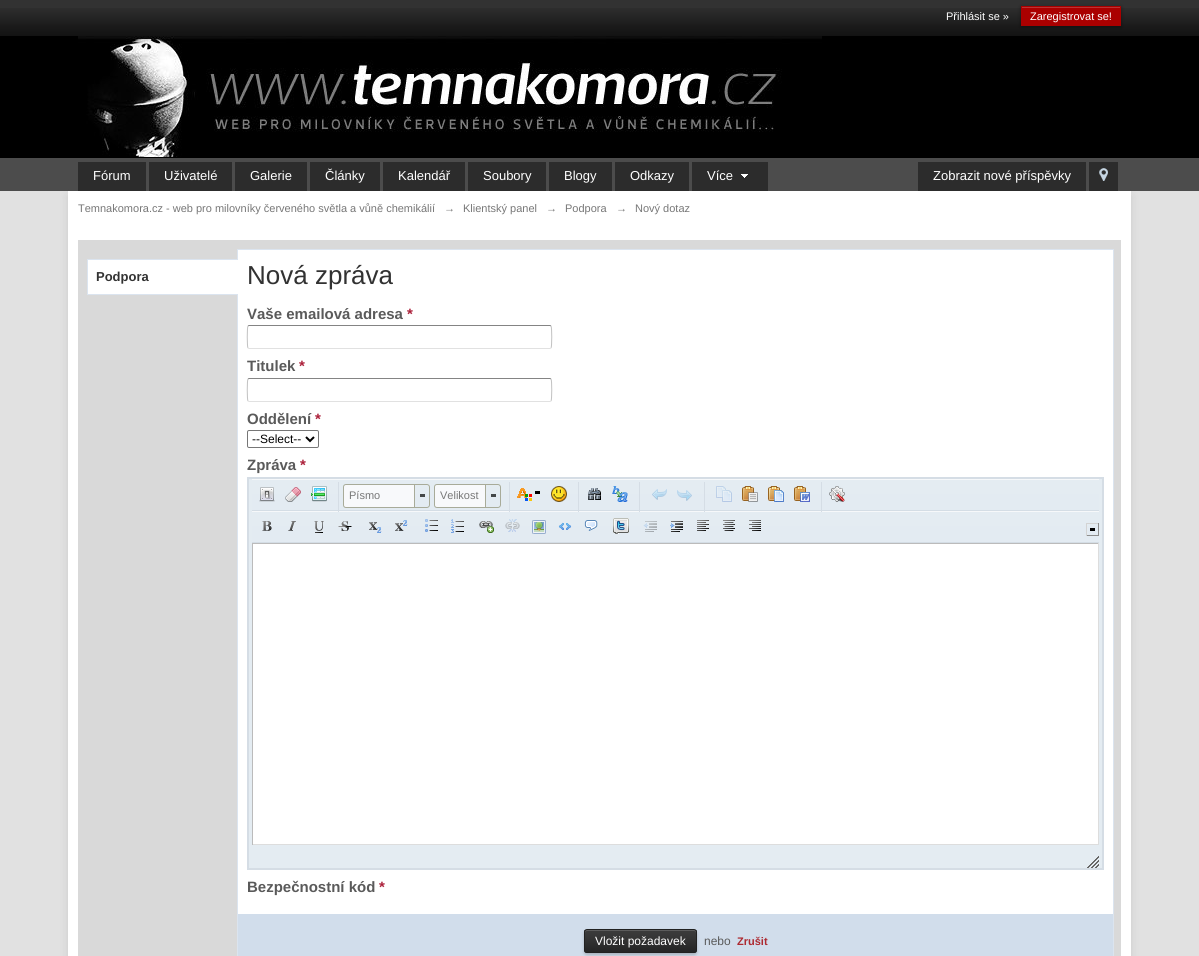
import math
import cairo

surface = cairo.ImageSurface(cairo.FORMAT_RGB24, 1199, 956)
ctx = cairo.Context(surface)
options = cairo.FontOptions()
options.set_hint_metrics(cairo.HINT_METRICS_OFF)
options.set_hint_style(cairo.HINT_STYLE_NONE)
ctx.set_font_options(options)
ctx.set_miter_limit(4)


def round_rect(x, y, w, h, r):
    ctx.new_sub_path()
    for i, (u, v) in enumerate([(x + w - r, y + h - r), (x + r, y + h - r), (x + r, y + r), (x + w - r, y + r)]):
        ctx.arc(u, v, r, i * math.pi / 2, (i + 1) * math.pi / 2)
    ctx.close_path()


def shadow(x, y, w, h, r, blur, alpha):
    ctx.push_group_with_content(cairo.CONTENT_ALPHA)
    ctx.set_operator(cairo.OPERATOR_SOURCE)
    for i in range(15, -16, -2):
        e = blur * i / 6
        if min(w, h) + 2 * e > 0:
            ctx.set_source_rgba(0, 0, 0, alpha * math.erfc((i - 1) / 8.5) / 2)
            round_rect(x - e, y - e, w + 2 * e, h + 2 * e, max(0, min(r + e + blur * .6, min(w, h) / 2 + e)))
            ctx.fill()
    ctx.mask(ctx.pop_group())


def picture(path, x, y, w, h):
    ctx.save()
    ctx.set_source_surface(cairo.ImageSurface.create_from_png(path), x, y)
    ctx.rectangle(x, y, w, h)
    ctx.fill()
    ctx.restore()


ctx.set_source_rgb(0.882, 0.882, 0.882)
ctx.paint()
ctx.set_source_rgb(0.196, 0.196, 0.196)
ctx.rectangle(0, 0, 1199, 8)
ctx.fill()
picture("img1.png", 0, 8, 1199, 28)
ctx.select_font_face("Liberation Sans")
ctx.set_font_size(11)
ctx.set_source_rgb(1, 1, 1)
ctx.move_to(946, 20)
ctx.show_text("Přihlásit se »")
ctx.set_source_rgb(0, 0, 0)
shadow(1021, 7, 100, 20, 0, 2, 0.4)
ctx.set_source_rgb(0.667, 0, 0)
ctx.rectangle(1021, 6, 100, 20)
ctx.fill()
ctx.set_source_rgb(0.733, 0.2, 0.2)
ctx.rectangle(1022, 7, 98, 1)
ctx.fill()
ctx.set_source_rgb(1, 1, 1)
ctx.move_to(1030, 20)
ctx.show_text("Zaregistrovat se!")
ctx.set_source_rgb(0, 0, 0)
ctx.rectangle(0, 36, 1199, 122)
ctx.fill()
picture("img2.png", 78, 36, 744, 121)
ctx.set_source_rgb(0.298, 0.298, 0.298)
ctx.rectangle(0, 158, 1199, 33)
ctx.fill()
ctx.set_source_rgb(0, 0, 0)
shadow(68, 196, 1063, 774, 0, 4.5, 0.1)
ctx.set_source_rgb(0.173, 0.173, 0.173)
ctx.rectangle(78, 162, 68, 29)
ctx.fill()
ctx.set_font_size(13)
ctx.set_source_rgb(1, 1, 1)
ctx.move_to(93, 180)
ctx.show_text("Fórum")
ctx.set_source_rgb(0.173, 0.173, 0.173)
ctx.rectangle(149, 162, 83, 29)
ctx.fill()
ctx.set_source_rgb(1, 1, 1)
ctx.move_to(164, 180)
ctx.show_text("Uživatelé")
ctx.set_source_rgb(0.173, 0.173, 0.173)
ctx.rectangle(235, 162, 72, 29)
ctx.fill()
ctx.set_source_rgb(1, 1, 1)
ctx.move_to(250, 180)
ctx.show_text("Galerie")
ctx.set_source_rgb(0.173, 0.173, 0.173)
ctx.rectangle(310, 162, 70, 29)
ctx.fill()
ctx.set_source_rgb(1, 1, 1)
ctx.move_to(325, 180)
ctx.show_text("Články")
ctx.set_source_rgb(0.173, 0.173, 0.173)
ctx.rectangle(383, 162, 82, 29)
ctx.fill()
ctx.set_source_rgb(1, 1, 1)
ctx.move_to(398, 180)
ctx.show_text("Kalendář")
ctx.set_source_rgb(0.173, 0.173, 0.173)
ctx.rectangle(468, 162, 78, 29)
ctx.fill()
ctx.set_source_rgb(1, 1, 1)
ctx.move_to(483, 180)
ctx.show_text("Soubory")
ctx.set_source_rgb(0.173, 0.173, 0.173)
ctx.rectangle(549, 162, 63, 29)
ctx.fill()
ctx.set_source_rgb(1, 1, 1)
ctx.move_to(564, 180)
ctx.show_text("Blogy")
ctx.set_source_rgb(0.173, 0.173, 0.173)
ctx.rectangle(615, 162, 74, 29)
ctx.fill()
ctx.set_source_rgb(1, 1, 1)
ctx.move_to(630, 180)
ctx.show_text("Odkazy")
ctx.set_source_rgb(0.173, 0.173, 0.173)
ctx.rectangle(692, 162, 76, 29)
ctx.fill()
ctx.set_source_rgb(1, 1, 1)
ctx.move_to(707, 180)
ctx.show_text("Více")
picture("img3.png", 741, 174, 7, 4)
ctx.set_source_rgb(0.173, 0.173, 0.173)
ctx.rectangle(918, 162, 168, 29)
ctx.fill()
ctx.set_source_rgb(1, 1, 1)
ctx.move_to(933, 180)
ctx.show_text("Zobrazit nové příspěvky")
ctx.set_source_rgb(0.173, 0.173, 0.173)
ctx.rectangle(1089, 162, 29, 29)
ctx.fill()
picture("img4.png", 1099, 168, 9, 13)
ctx.set_source_rgb(1, 1, 1)
ctx.rectangle(68, 191, 1063, 765)
ctx.fill()
ctx.set_font_size(11)
ctx.set_source_rgb(0.467, 0.467, 0.467)
ctx.move_to(78, 212)
ctx.show_text("Temnakomora.cz - web pro milovníky červeného světla a vůně chemikálií")
ctx.move_to(444, 212)
ctx.show_text("→")
ctx.move_to(463, 212)
ctx.show_text("Klientský panel")
ctx.move_to(546, 212)
ctx.show_text("→")
ctx.move_to(565, 212)
ctx.show_text("Podpora")
ctx.move_to(616, 212)
ctx.show_text("→")
ctx.move_to(635, 212)
ctx.show_text("Nový dotaz")
ctx.set_source_rgb(0.851, 0.851, 0.851)
ctx.rectangle(78, 240, 1043, 716)
ctx.fill()
ctx.set_source_rgb(0.859, 0.894, 0.937)
ctx.rectangle(87, 259, 150, 1)
ctx.fill()
ctx.rectangle(87, 259, 1, 36)
ctx.fill()
ctx.rectangle(88, 294, 149, 1)
ctx.fill()
ctx.set_source_rgb(1, 1, 1)
ctx.rectangle(238, 250, 875, 664)
ctx.fill()
ctx.rectangle(237.5, 249.5, 876, 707)
ctx.set_source_rgb(0.859, 0.894, 0.937)
ctx.set_line_width(1)
ctx.stroke()
ctx.set_source_rgb(1, 1, 1)
ctx.rectangle(88, 260, 150, 34)
ctx.fill()
ctx.select_font_face("Liberation Sans", cairo.FONT_SLANT_NORMAL, cairo.FONT_WEIGHT_BOLD)
ctx.set_font_size(13)
ctx.set_source_rgb(0.196, 0.196, 0.196)
ctx.move_to(96, 281)
ctx.show_text("Podpora")
ctx.select_font_face("Liberation Sans")
ctx.set_font_size(26)
ctx.move_to(247, 284)
ctx.show_text("Nová zpráva")
ctx.select_font_face("Liberation Sans", cairo.FONT_SLANT_NORMAL, cairo.FONT_WEIGHT_BOLD)
ctx.set_font_size(15)
ctx.set_source_rgb(0.353, 0.353, 0.353)
ctx.move_to(247, 319)
ctx.show_text("Vaše emailová adresa")
ctx.set_source_rgb(0.671, 0.122, 0.224)
ctx.move_to(407, 319)
ctx.show_text("*")
ctx.new_path()
ctx.move_to(248, 326)
ctx.line_to(249, 325.5)
ctx.line_to(550, 325.5)
ctx.line_to(551, 326)
ctx.set_source_rgb(0.518, 0.518, 0.518)
ctx.stroke()
ctx.new_path()
ctx.move_to(551, 326)
ctx.curve_to(552, 327, 552, 347, 551, 348)
ctx.set_source_rgb(0.757, 0.757, 0.757)
ctx.stroke()
ctx.new_path()
ctx.move_to(551, 348)
ctx.line_to(550, 348.5)
ctx.line_to(249, 348.5)
ctx.line_to(248, 348)
ctx.set_source_rgb(0.882, 0.882, 0.882)
ctx.stroke()
ctx.new_path()
ctx.move_to(248, 348)
ctx.curve_to(247, 347, 247, 327, 248, 326)
ctx.set_source_rgb(0.757, 0.757, 0.757)
ctx.stroke()
ctx.set_source_rgb(0.353, 0.353, 0.353)
ctx.move_to(247, 371)
ctx.show_text("Titulek")
ctx.set_source_rgb(0.671, 0.122, 0.224)
ctx.move_to(299, 371)
ctx.show_text("*")
ctx.new_path()
ctx.move_to(248, 379)
ctx.line_to(249, 378.5)
ctx.line_to(550, 378.5)
ctx.line_to(551, 379)
ctx.set_source_rgb(0.518, 0.518, 0.518)
ctx.stroke()
ctx.new_path()
ctx.move_to(551, 379)
ctx.curve_to(552, 380, 552, 400, 551, 401)
ctx.set_source_rgb(0.757, 0.757, 0.757)
ctx.stroke()
ctx.new_path()
ctx.move_to(551, 401)
ctx.line_to(550, 401.5)
ctx.line_to(249, 401.5)
ctx.line_to(248, 401)
ctx.set_source_rgb(0.882, 0.882, 0.882)
ctx.stroke()
ctx.new_path()
ctx.move_to(248, 401)
ctx.curve_to(247, 400, 247, 380, 248, 379)
ctx.set_source_rgb(0.757, 0.757, 0.757)
ctx.stroke()
ctx.set_source_rgb(0.353, 0.353, 0.353)
ctx.move_to(247, 424)
ctx.show_text("Oddělení")
ctx.set_source_rgb(0.671, 0.122, 0.224)
ctx.move_to(315, 424)
ctx.show_text("*")
round_rect(247.5, 430.5, 71, 17, 1.5)
ctx.set_source_rgb(0.463, 0.463, 0.463)
ctx.stroke()
ctx.new_path()
ctx.move_to(306, 437)
ctx.line_to(310, 441)
ctx.line_to(314, 437)
ctx.set_source_rgb(0, 0, 0)
ctx.set_line_width(2)
ctx.stroke()
ctx.select_font_face("Liberation Sans")
ctx.set_font_size(12)
ctx.move_to(252, 443)
ctx.show_text("--Select--")
ctx.select_font_face("Liberation Sans", cairo.FONT_SLANT_NORMAL, cairo.FONT_WEIGHT_BOLD)
ctx.set_font_size(15)
ctx.set_source_rgb(0.353, 0.353, 0.353)
ctx.move_to(247, 470)
ctx.show_text("Zpráva")
ctx.set_source_rgb(0.671, 0.122, 0.224)
ctx.move_to(300, 470)
ctx.show_text("*")
ctx.set_source_rgb(0.894, 0.922, 0.949)
ctx.rectangle(248, 478, 855, 391)
ctx.fill_preserve()
ctx.set_source_rgb(0.835, 0.867, 0.898)
ctx.stroke()
picture("img5.png", 252, 479, 847, 64)
picture("img6.png", 259, 487, 16, 15)
picture("img7.png", 285, 487, 16, 15)
picture("img8.png", 311, 486, 16, 16)
ctx.rectangle(338, 482, 1, 30)
ctx.fill()
ctx.set_source_rgb(0.969, 0.976, 0.984)
ctx.new_path()
ctx.move_to(346, 484.5)
ctx.line_to(414.5, 484.5)
ctx.line_to(414.5, 507.5)
ctx.line_to(346, 507.5)
ctx.curve_to(344.5, 507.5, 343.5, 506.5, 343.5, 505)
ctx.line_to(343.5, 487)
ctx.curve_to(343.5, 485.5, 344.5, 484.5, 346, 484.5)
ctx.close_path()
ctx.fill_preserve()
ctx.set_source_rgb(0.659, 0.671, 0.6)
ctx.set_line_width(1)
ctx.stroke()
ctx.select_font_face("Liberation Sans")
ctx.set_font_size(11)
ctx.set_source_rgb(0.467, 0.467, 0.467)
ctx.move_to(349, 499)
ctx.show_text("Písmo")
ctx.set_source_rgb(0.267, 0.278, 0.286)
ctx.rectangle(420, 494, 5, 3)
ctx.fill()
ctx.set_source_rgb(0.659, 0.671, 0.6)
ctx.set_fill_rule(cairo.FILL_RULE_EVEN_ODD)
ctx.new_path()
ctx.move_to(415, 484)
ctx.line_to(427, 484)
ctx.curve_to(428.5, 484, 430, 485.5, 430, 487)
ctx.line_to(430, 505)
ctx.curve_to(430, 506.5, 428.5, 508, 427, 508)
ctx.line_to(415, 508)
ctx.close_path()
ctx.move_to(415, 485)
ctx.line_to(427, 485)
ctx.curve_to(428, 485, 429, 486, 429, 487)
ctx.line_to(429, 505)
ctx.curve_to(429, 506, 428, 507, 427, 507)
ctx.line_to(415, 507)
ctx.close_path()
ctx.fill()
ctx.set_source_rgb(0.969, 0.976, 0.984)
ctx.new_path()
ctx.move_to(437, 484.5)
ctx.line_to(485.5, 484.5)
ctx.line_to(485.5, 507.5)
ctx.line_to(437, 507.5)
ctx.curve_to(435.5, 507.5, 434.5, 506.5, 434.5, 505)
ctx.line_to(434.5, 487)
ctx.curve_to(434.5, 485.5, 435.5, 484.5, 437, 484.5)
ctx.close_path()
ctx.fill_preserve()
ctx.set_source_rgb(0.659, 0.671, 0.6)
ctx.stroke()
ctx.set_source_rgb(0.467, 0.467, 0.467)
ctx.move_to(440, 499)
ctx.show_text("Velikost")
ctx.set_source_rgb(0.267, 0.278, 0.286)
ctx.rectangle(491, 494, 5, 3)
ctx.fill()
ctx.set_source_rgb(0.659, 0.671, 0.6)
ctx.new_path()
ctx.move_to(486, 484)
ctx.line_to(498, 484)
ctx.curve_to(499.5, 484, 501, 485.5, 501, 487)
ctx.line_to(501, 505)
ctx.curve_to(501, 506.5, 499.5, 508, 498, 508)
ctx.line_to(486, 508)
ctx.close_path()
ctx.move_to(486, 485)
ctx.line_to(498, 485)
ctx.curve_to(499, 485, 500, 486, 500, 487)
ctx.line_to(500, 505)
ctx.curve_to(500, 506, 499, 507, 498, 507)
ctx.line_to(486, 507)
ctx.close_path()
ctx.fill()
ctx.set_source_rgb(0.835, 0.867, 0.898)
ctx.rectangle(509, 482, 1, 30)
ctx.fill()
picture("img9.png", 517, 488, 15, 13)
ctx.set_source_rgb(0, 0, 0)
ctx.rectangle(535, 491, 5, 3)
ctx.fill()
picture("img10.png", 551, 486, 16, 16)
ctx.set_source_rgb(0.835, 0.867, 0.898)
ctx.rectangle(578, 482, 1, 30)
ctx.fill()
picture("img11.png", 588, 488, 13, 12)
picture("img12.png", 612, 486, 16, 16)
ctx.rectangle(639, 482, 1, 30)
ctx.fill()
picture("img13.png", 652, 489, 15, 11)
picture("img14.png", 677, 490, 15, 11)
ctx.rectangle(704, 482, 1, 30)
ctx.fill()
picture("img15.png", 716, 486, 16, 16)
picture("img16.png", 742, 486, 16, 16)
picture("img17.png", 768, 486, 16, 16)
picture("img18.png", 794, 486, 16, 16)
ctx.rectangle(821, 482, 1, 30)
ctx.fill()
picture("img19.png", 829, 486, 16, 16)
picture("img20.png", 262, 521, 10, 10)
picture("img21.png", 288, 521, 8, 10)
picture("img22.png", 314, 521, 10, 12)
picture("img23.png", 338, 521, 14, 10)
picture("img24.png", 369, 522, 13, 11)
picture("img25.png", 395, 520, 13, 11)
picture("img26.png", 425, 519, 13, 13)
picture("img27.png", 451, 519, 13, 14)
picture("img28.png", 479, 521, 15, 12)
picture("img29.png", 505, 519, 15, 13)
picture("img30.png", 532, 520, 14, 14)
picture("img31.png", 558, 522, 14, 8)
picture("img32.png", 584, 520, 14, 11)
picture("img33.png", 613, 518, 16, 16)
picture("img34.png", 643, 521, 14, 11)
picture("img35.png", 670, 521, 13, 11)
picture("img36.png", 697, 520, 12, 11)
picture("img37.png", 723, 520, 12, 11)
picture("img38.png", 749, 520, 12, 11)
ctx.set_source_rgb(0, 0, 0)
ctx.rectangle(1090, 528, 5, 3)
ctx.fill()
ctx.set_source_rgb(0.827, 0.827, 0.827)
ctx.rectangle(1086, 523, 13, 1)
ctx.fill()
ctx.set_source_rgb(0.553, 0.553, 0.553)
ctx.rectangle(1098, 523, 1, 13)
ctx.fill()
ctx.rectangle(1086, 535, 13, 1)
ctx.fill()
ctx.set_source_rgb(0.827, 0.827, 0.827)
ctx.rectangle(1086, 523, 1, 13)
ctx.fill()
ctx.set_source_rgb(0.733, 0.733, 0.733)
ctx.rectangle(252, 543, 847, 1)
ctx.fill()
ctx.set_source_rgb(0.867, 0.867, 0.867)
ctx.rectangle(1098, 543, 1, 302)
ctx.fill()
ctx.rectangle(252, 844, 847, 1)
ctx.fill()
ctx.set_source_rgb(0.733, 0.733, 0.733)
ctx.rectangle(252, 543, 1, 302)
ctx.fill()
ctx.set_source_rgb(1, 1, 1)
ctx.rectangle(253, 544, 845, 300)
ctx.fill()
picture("img39.png", 1087, 856, 12, 12)
ctx.select_font_face("Liberation Sans", cairo.FONT_SLANT_NORMAL, cairo.FONT_WEIGHT_BOLD)
ctx.set_font_size(15)
ctx.set_source_rgb(0.353, 0.353, 0.353)
ctx.move_to(247, 892)
ctx.show_text("Bezpečnostní kód")
ctx.set_source_rgb(0.671, 0.122, 0.224)
ctx.move_to(379, 892)
ctx.show_text("*")
ctx.set_source_rgb(0.82, 0.867, 0.918)
ctx.rectangle(238, 914, 875, 42)
ctx.fill()
ctx.set_source_rgb(0, 0, 0)
shadow(584, 931, 113, 24, 3, 1.5, 0.2)
picture("img40.png", 584, 930, 113, 23)
ctx.set_source_rgb(0.361, 0.361, 0.361)
ctx.set_fill_rule(cairo.FILL_RULE_WINDING)
ctx.new_path()
ctx.move_to(587, 931)
ctx.line_to(694, 931)
ctx.curve_to(695, 931, 696, 932, 696, 933)
ctx.curve_to(696, 932, 696, 930, 694, 930)
ctx.line_to(587, 930)
ctx.curve_to(585, 930, 585, 932, 585, 933)
ctx.curve_to(585, 932, 586, 931, 587, 931)
ctx.close_path()
ctx.fill()
round_rect(584.5, 929.5, 112, 23, 2.5)
ctx.set_source_rgb(0.129, 0.129, 0.129)
ctx.stroke()
ctx.select_font_face("Liberation Sans")
ctx.set_font_size(12)
ctx.set_source_rgb(1, 1, 1)
ctx.move_to(595, 945)
ctx.show_text("Vložit požadavek")
ctx.set_source_rgb(0.353, 0.353, 0.353)
ctx.move_to(704, 945)
ctx.show_text("nebo")
ctx.select_font_face("Liberation Sans", cairo.FONT_SLANT_NORMAL, cairo.FONT_WEIGHT_BOLD)
ctx.set_font_size(11)
ctx.set_source_rgb(0.678, 0.161, 0.188)
ctx.move_to(737, 945)
ctx.show_text("Zrušit")
surface.write_to_png("page.png")
